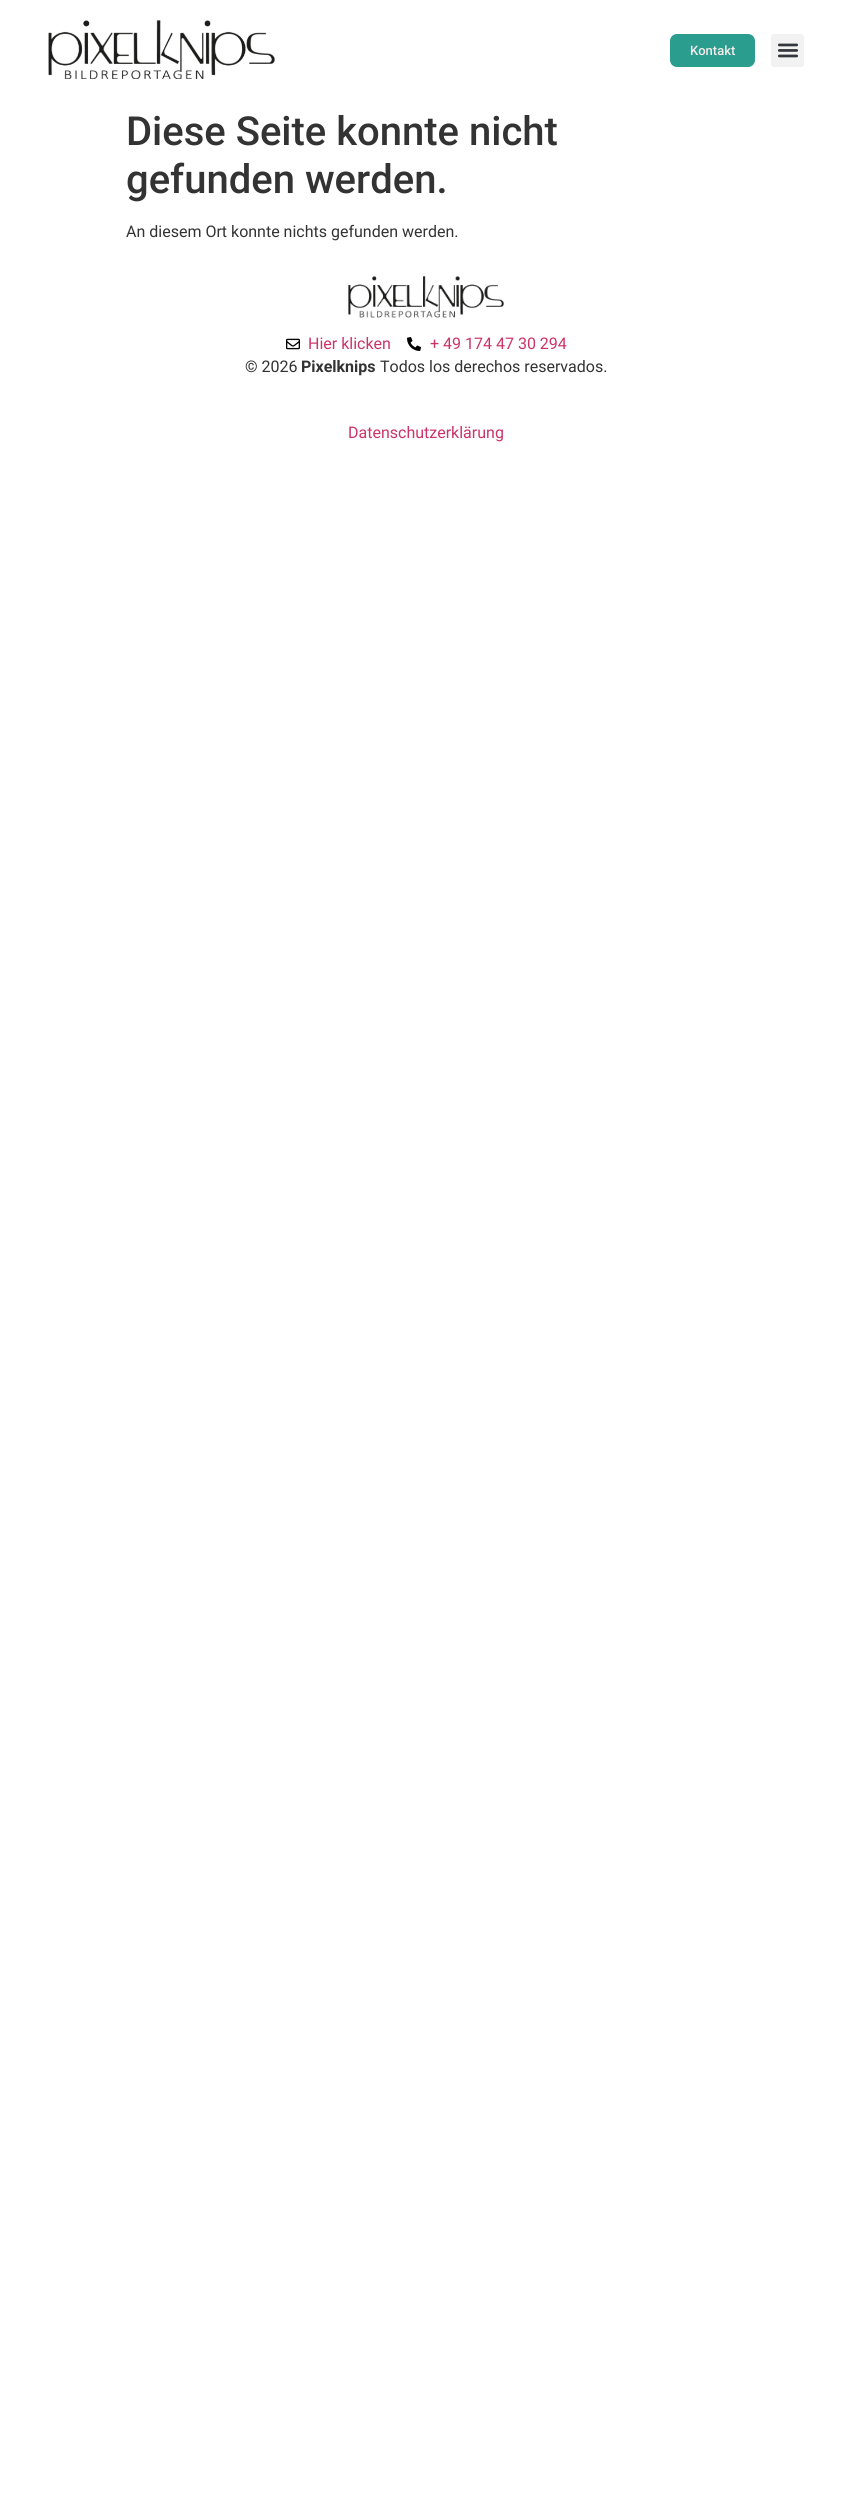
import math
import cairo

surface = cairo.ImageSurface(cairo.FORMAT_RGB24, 852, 2515)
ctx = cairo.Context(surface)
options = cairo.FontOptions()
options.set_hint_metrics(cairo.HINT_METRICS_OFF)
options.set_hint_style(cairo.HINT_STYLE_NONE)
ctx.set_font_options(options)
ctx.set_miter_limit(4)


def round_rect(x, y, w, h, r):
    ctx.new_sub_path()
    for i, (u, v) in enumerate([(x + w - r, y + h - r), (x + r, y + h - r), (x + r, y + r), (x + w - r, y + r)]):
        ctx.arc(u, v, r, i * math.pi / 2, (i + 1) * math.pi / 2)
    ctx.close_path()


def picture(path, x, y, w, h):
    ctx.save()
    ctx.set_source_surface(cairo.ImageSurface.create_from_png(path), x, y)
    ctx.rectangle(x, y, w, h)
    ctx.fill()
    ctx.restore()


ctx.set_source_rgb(1, 1, 1)
ctx.paint()
picture("img1.png", 48, 20, 227, 59)
ctx.set_source_rgb(0.165, 0.616, 0.561)
round_rect(670, 34, 85, 33, 7)
ctx.fill()
ctx.select_font_face("Roboto Medium")
ctx.set_font_size(13)
ctx.set_source_rgb(0.961, 0.925, 0.918)
ctx.move_to(690, 55)
ctx.show_text("Kontakt")
ctx.set_source_rgb(0.949, 0.949, 0.949)
round_rect(771, 34, 33, 33, 3)
ctx.fill()
picture("img2.png", 777, 43, 22, 15)
ctx.set_font_size(40)
ctx.set_source_rgb(0.2, 0.2, 0.2)
ctx.move_to(126, 145)
ctx.show_text("Diese Seite konnte nicht")
ctx.move_to(126, 193)
ctx.show_text("gefunden werden.")
ctx.select_font_face("Roboto")
ctx.set_font_size(16)
ctx.move_to(126, 237)
ctx.show_text("An diesem Ort konnte nichts gefunden werden.")
picture("img3.png", 348, 276, 156, 42)
picture("img4.png", 286, 338, 14, 12)
ctx.set_source_rgb(0.8, 0.2, 0.4)
ctx.move_to(308, 349)
ctx.show_text("Hier klicken")
picture("img5.png", 407, 337, 14, 14)
ctx.move_to(430, 349)
ctx.show_text("+ 49 174 47 30 294")
ctx.set_source_rgb(0.2, 0.2, 0.2)
ctx.move_to(245, 372)
ctx.show_text("© 2026")
ctx.select_font_face("Roboto", cairo.FONT_SLANT_NORMAL, cairo.FONT_WEIGHT_BOLD)
ctx.move_to(301, 372)
ctx.show_text("Pixelknips")
ctx.select_font_face("Roboto")
ctx.move_to(380, 372)
ctx.show_text("Todos los derechos reservados.")
ctx.set_source_rgb(0.8, 0.2, 0.4)
ctx.move_to(348, 438)
ctx.show_text("Datenschutzerklärung")
surface.write_to_png("page.png")
